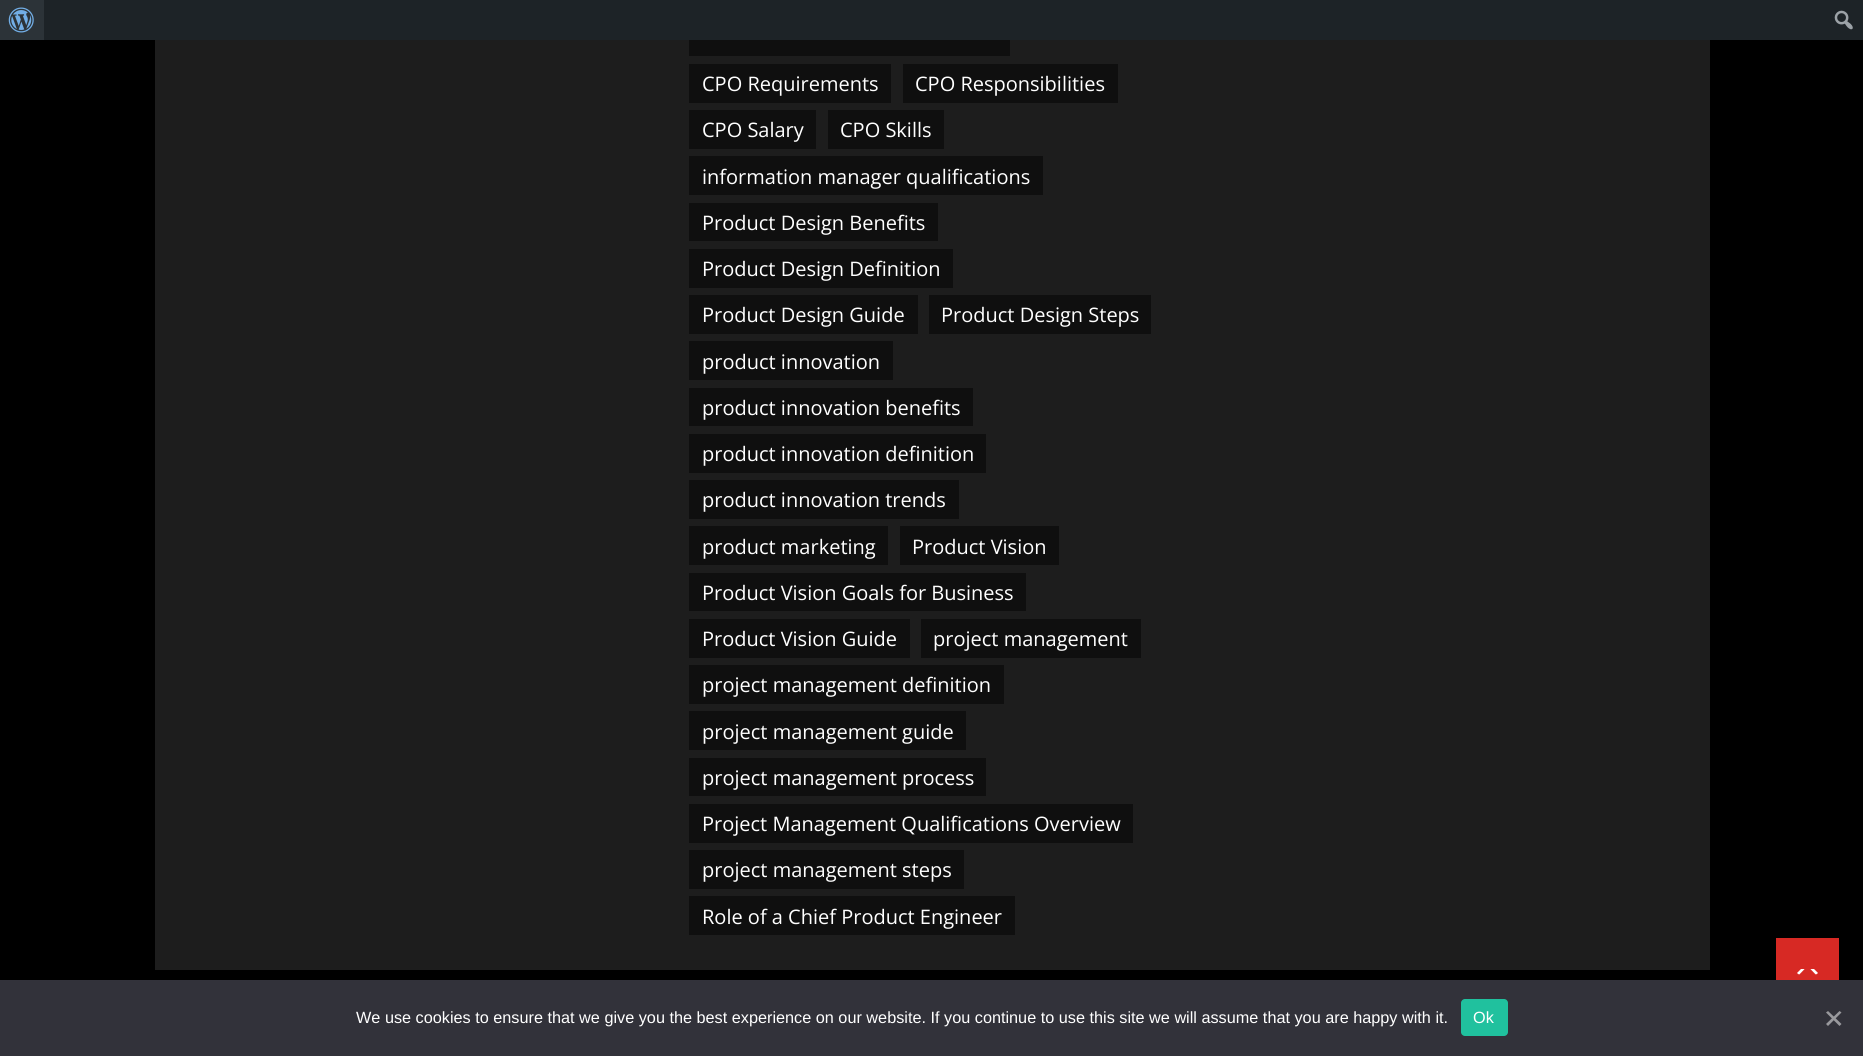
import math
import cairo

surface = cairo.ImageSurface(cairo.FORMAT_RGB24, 1863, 1056)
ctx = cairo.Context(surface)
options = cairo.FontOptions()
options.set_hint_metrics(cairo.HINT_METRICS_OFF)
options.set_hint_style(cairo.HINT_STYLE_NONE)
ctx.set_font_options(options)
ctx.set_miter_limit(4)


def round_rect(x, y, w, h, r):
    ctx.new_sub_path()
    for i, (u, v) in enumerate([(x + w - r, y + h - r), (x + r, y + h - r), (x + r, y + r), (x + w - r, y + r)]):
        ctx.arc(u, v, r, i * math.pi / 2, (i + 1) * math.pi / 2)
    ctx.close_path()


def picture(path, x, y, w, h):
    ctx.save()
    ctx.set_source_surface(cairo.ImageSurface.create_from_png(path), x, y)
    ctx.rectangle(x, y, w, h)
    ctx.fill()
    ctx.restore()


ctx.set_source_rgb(0, 0, 0)
ctx.paint()
ctx.set_source_rgb(0.114, 0.137, 0.153)
ctx.rectangle(44, 0, 1819, 40)
ctx.fill()
ctx.set_source_rgb(0.173, 0.2, 0.22)
ctx.rectangle(0, 0, 44, 40)
ctx.fill()
picture("img1.png", 8, 7, 26, 26)
picture("img2.png", 1834, 10, 19, 20)
ctx.set_source_rgb(0.114, 0.114, 0.114)
ctx.rectangle(155, 40, 1555, 930)
ctx.fill()
ctx.set_source_rgb(0.059, 0.059, 0.059)
ctx.rectangle(689, 40, 321, 16)
ctx.fill()
ctx.rectangle(689, 64, 202, 39)
ctx.fill()
ctx.select_font_face("Open Sans")
ctx.set_font_size(20)
ctx.set_source_rgb(1, 1, 1)
ctx.move_to(702, 91)
ctx.show_text("CPO Requirements")
ctx.set_source_rgb(0.059, 0.059, 0.059)
ctx.rectangle(903, 64, 215, 39)
ctx.fill()
ctx.set_source_rgb(1, 1, 1)
ctx.move_to(915, 91)
ctx.show_text("CPO Responsibilities")
ctx.set_source_rgb(0.059, 0.059, 0.059)
ctx.rectangle(689, 110, 127, 39)
ctx.fill()
ctx.set_source_rgb(1, 1, 1)
ctx.move_to(702, 137)
ctx.show_text("CPO Salary")
ctx.set_source_rgb(0.059, 0.059, 0.059)
ctx.rectangle(828, 110, 116, 39)
ctx.fill()
ctx.set_source_rgb(1, 1, 1)
ctx.move_to(840, 137)
ctx.show_text("CPO Skills")
ctx.set_source_rgb(0.059, 0.059, 0.059)
ctx.rectangle(689, 156, 354, 39)
ctx.fill()
ctx.set_source_rgb(1, 1, 1)
ctx.move_to(702, 184)
ctx.show_text("information manager qualifications")
ctx.set_source_rgb(0.059, 0.059, 0.059)
ctx.rectangle(689, 203, 249, 38)
ctx.fill()
ctx.set_source_rgb(1, 1, 1)
ctx.move_to(702, 230)
ctx.show_text("Product Design Benefits")
ctx.set_source_rgb(0.059, 0.059, 0.059)
ctx.rectangle(689, 249, 264, 39)
ctx.fill()
ctx.set_source_rgb(1, 1, 1)
ctx.move_to(702, 276)
ctx.show_text("Product Design Definition")
ctx.set_source_rgb(0.059, 0.059, 0.059)
ctx.rectangle(689, 295, 229, 39)
ctx.fill()
ctx.set_source_rgb(1, 1, 1)
ctx.move_to(702, 322)
ctx.show_text("Product Design Guide")
ctx.set_source_rgb(0.059, 0.059, 0.059)
ctx.rectangle(929, 295, 222, 39)
ctx.fill()
ctx.set_source_rgb(1, 1, 1)
ctx.move_to(941, 322)
ctx.show_text("Product Design Steps")
ctx.set_source_rgb(0.059, 0.059, 0.059)
ctx.rectangle(689, 341, 204, 39)
ctx.fill()
ctx.set_source_rgb(1, 1, 1)
ctx.move_to(702, 369)
ctx.show_text("product innovation")
ctx.set_source_rgb(0.059, 0.059, 0.059)
ctx.rectangle(689, 388, 284, 38)
ctx.fill()
ctx.set_source_rgb(1, 1, 1)
ctx.move_to(702, 415)
ctx.show_text("product innovation benefits")
ctx.set_source_rgb(0.059, 0.059, 0.059)
ctx.rectangle(689, 434, 297, 39)
ctx.fill()
ctx.set_source_rgb(1, 1, 1)
ctx.move_to(702, 461)
ctx.show_text("product innovation definition")
ctx.set_source_rgb(0.059, 0.059, 0.059)
ctx.rectangle(689, 480, 270, 39)
ctx.fill()
ctx.set_source_rgb(1, 1, 1)
ctx.move_to(702, 507)
ctx.show_text("product innovation trends")
ctx.set_source_rgb(0.059, 0.059, 0.059)
ctx.rectangle(689, 526, 199, 39)
ctx.fill()
ctx.set_source_rgb(1, 1, 1)
ctx.move_to(702, 554)
ctx.show_text("product marketing")
ctx.set_source_rgb(0.059, 0.059, 0.059)
ctx.rectangle(900, 526, 159, 39)
ctx.fill()
ctx.set_source_rgb(1, 1, 1)
ctx.move_to(912, 554)
ctx.show_text("Product Vision")
ctx.set_source_rgb(0.059, 0.059, 0.059)
ctx.rectangle(689, 573, 337, 38)
ctx.fill()
ctx.set_source_rgb(1, 1, 1)
ctx.move_to(702, 600)
ctx.show_text("Product Vision Goals for Business")
ctx.set_source_rgb(0.059, 0.059, 0.059)
ctx.rectangle(689, 619, 221, 39)
ctx.fill()
ctx.set_source_rgb(1, 1, 1)
ctx.move_to(702, 646)
ctx.show_text("Product Vision Guide")
ctx.set_source_rgb(0.059, 0.059, 0.059)
ctx.rectangle(921, 619, 220, 39)
ctx.fill()
ctx.set_source_rgb(1, 1, 1)
ctx.move_to(933, 646)
ctx.show_text("project management")
ctx.set_source_rgb(0.059, 0.059, 0.059)
ctx.rectangle(689, 665, 315, 39)
ctx.fill()
ctx.set_source_rgb(1, 1, 1)
ctx.move_to(702, 692)
ctx.show_text("project management definition")
ctx.set_source_rgb(0.059, 0.059, 0.059)
ctx.rectangle(689, 711, 277, 39)
ctx.fill()
ctx.set_source_rgb(1, 1, 1)
ctx.move_to(702, 739)
ctx.show_text("project management guide")
ctx.set_source_rgb(0.059, 0.059, 0.059)
ctx.rectangle(689, 758, 297, 38)
ctx.fill()
ctx.set_source_rgb(1, 1, 1)
ctx.move_to(702, 785)
ctx.show_text("project management process")
ctx.set_source_rgb(0.059, 0.059, 0.059)
ctx.rectangle(689, 804, 444, 39)
ctx.fill()
ctx.set_source_rgb(1, 1, 1)
ctx.move_to(702, 831)
ctx.show_text("Project Management Qualifications Overview")
ctx.set_source_rgb(0.059, 0.059, 0.059)
ctx.rectangle(689, 850, 275, 39)
ctx.fill()
ctx.set_source_rgb(1, 1, 1)
ctx.move_to(702, 877)
ctx.show_text("project management steps")
ctx.set_source_rgb(0.059, 0.059, 0.059)
ctx.rectangle(689, 896, 326, 39)
ctx.fill()
ctx.set_source_rgb(1, 1, 1)
ctx.move_to(702, 924)
ctx.show_text("Role of a Chief Product Engineer")
ctx.set_source_rgb(0.843, 0.161, 0.141)
ctx.rectangle(1776, 938, 63, 42)
ctx.fill()
ctx.set_source_rgb(1, 1, 1)
ctx.new_path()
ctx.move_to(1801, 975)
ctx.line_to(1814, 975)
ctx.curve_to(1815.5, 975, 1817, 974, 1818, 973)
ctx.line_to(1814, 969)
ctx.line_to(1801, 969)
ctx.line_to(1797, 973)
ctx.curve_to(1798, 974, 1799.5, 975, 1801, 975)
ctx.close_path()
ctx.fill()
ctx.set_source_rgb(0.843, 0.161, 0.141)
ctx.new_path()
ctx.move_to(1820, 979)
ctx.line_to(1795, 979)
ctx.line_to(1807.5, 966)
ctx.close_path()
ctx.fill()
ctx.set_source_rgb(0.196, 0.196, 0.227)
ctx.rectangle(0, 980, 1863, 76)
ctx.fill()
ctx.select_font_face("Liberation Sans")
ctx.set_font_size(16.25)
ctx.set_source_rgb(1, 1, 1)
ctx.move_to(356, 1023)
ctx.show_text("We use cookies to ensure that we give you the best experience on our website. If you continue to use this site we will assume that you are happy with it.")
ctx.set_source_rgb(0.125, 0.757, 0.62)
round_rect(1461, 999, 47, 37, 4)
ctx.fill()
ctx.set_source_rgb(1, 1, 1)
ctx.move_to(1473, 1023)
ctx.show_text("Ok")
ctx.set_source_rgb(0.6, 0.6, 0.616)
ctx.new_path()
ctx.move_to(1839.5, 1011)
ctx.line_to(1841.5, 1012.5)
ctx.line_to(1828, 1026)
ctx.line_to(1826, 1024)
ctx.close_path()
ctx.fill()
ctx.new_path()
ctx.move_to(1826, 1012.5)
ctx.line_to(1828, 1011)
ctx.line_to(1841.5, 1024)
ctx.line_to(1839.5, 1026)
ctx.close_path()
ctx.fill()
surface.write_to_png("page.png")
